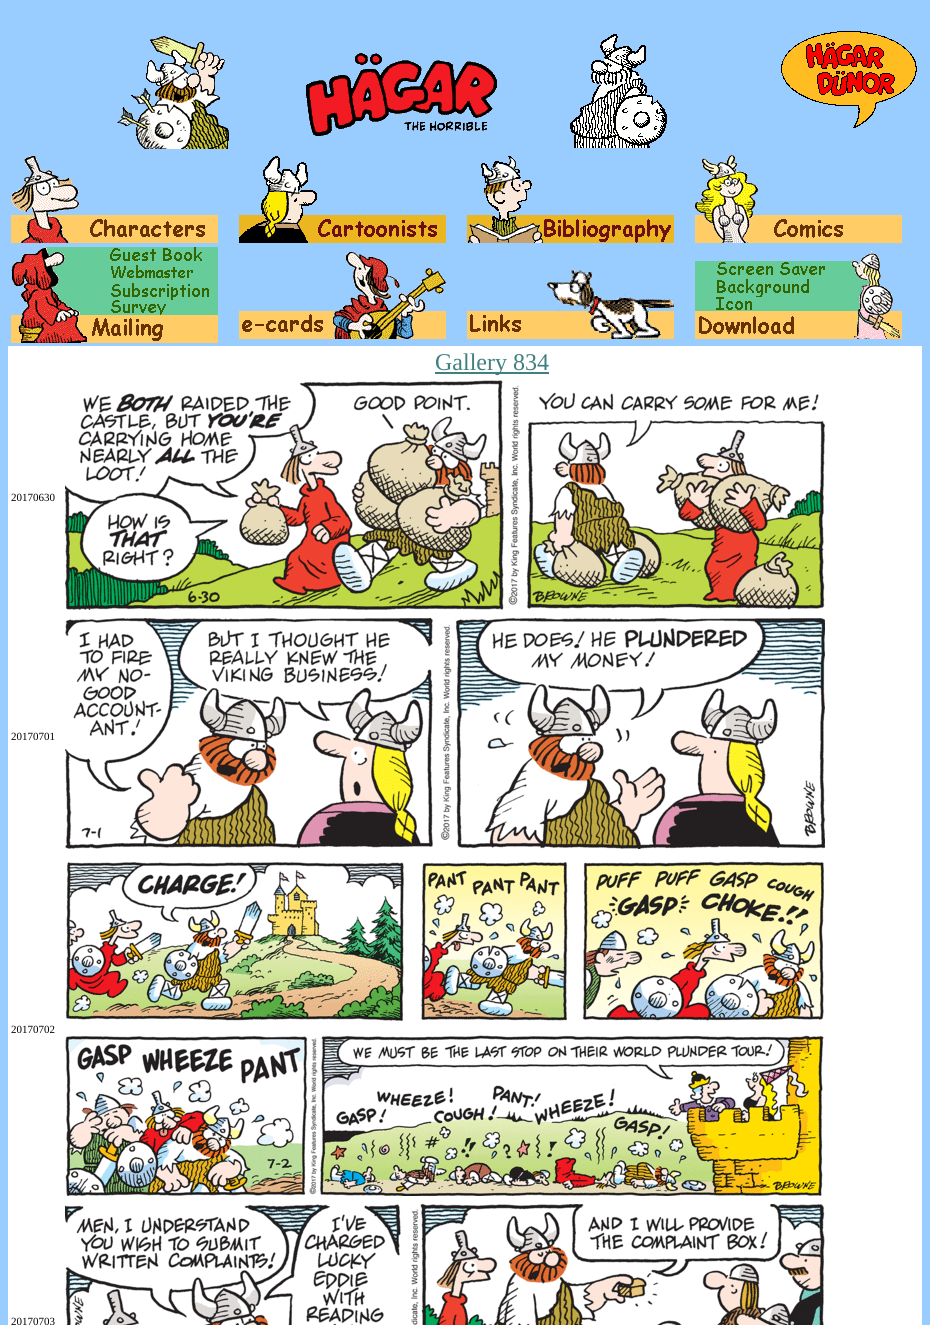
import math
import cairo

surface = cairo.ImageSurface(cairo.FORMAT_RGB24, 930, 1325)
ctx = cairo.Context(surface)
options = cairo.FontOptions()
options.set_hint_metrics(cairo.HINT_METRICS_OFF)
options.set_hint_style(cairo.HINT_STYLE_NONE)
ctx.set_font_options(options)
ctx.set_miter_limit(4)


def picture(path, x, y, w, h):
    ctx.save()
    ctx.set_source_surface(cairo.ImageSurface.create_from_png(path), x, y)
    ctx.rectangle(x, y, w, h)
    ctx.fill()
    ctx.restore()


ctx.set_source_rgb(0.6, 0.8, 1)
ctx.paint()
picture("img1.png", 117, 34, 550, 115)
picture("img2.png", 781, 31, 136, 97)
picture("img3.png", 11, 155, 207, 88)
picture("img4.png", 239, 156, 207, 87)
picture("img5.png", 467, 156, 207, 87)
picture("img6.png", 695, 155, 207, 88)
picture("img7.png", 11, 247, 79, 96)
picture("img8.png", 90, 247, 128, 18)
picture("img9.png", 90, 265, 128, 17)
picture("img10.png", 90, 282, 128, 18)
picture("img11.png", 90, 300, 128, 15)
picture("img12.png", 90, 315, 128, 28)
picture("img13.png", 239, 252, 207, 87)
picture("img14.png", 467, 269, 207, 70)
picture("img15.png", 695, 261, 142, 14)
picture("img16.png", 837, 251, 65, 88)
picture("img17.png", 695, 275, 142, 22)
picture("img18.png", 695, 297, 142, 14)
picture("img19.png", 695, 311, 142, 28)
ctx.set_source_rgb(1, 1, 1)
ctx.rectangle(8, 346, 914, 979)
ctx.fill()
ctx.set_source_rgb(0.251, 0.502, 0.502)
ctx.rectangle(435, 372, 114, 2)
ctx.fill()
ctx.select_font_face("Liberation Serif")
ctx.set_font_size(24)
ctx.move_to(435, 370)
ctx.show_text("Gallery 834")
ctx.set_font_size(11)
ctx.set_source_rgb(0, 0, 0)
ctx.move_to(11, 501)
ctx.show_text("20170630")
picture("img20.png", 65, 380, 760, 230)
ctx.move_to(11, 740)
ctx.show_text("20170701")
picture("img21.png", 65, 618, 760, 231)
ctx.move_to(11, 1033)
ctx.show_text("20170702")
picture("img22.png", 65, 861, 760, 335)
ctx.move_to(11, 1325)
ctx.show_text("20170703")
picture("img23.png", 65, 1204, 760, 121)
surface.write_to_png("page.png")
